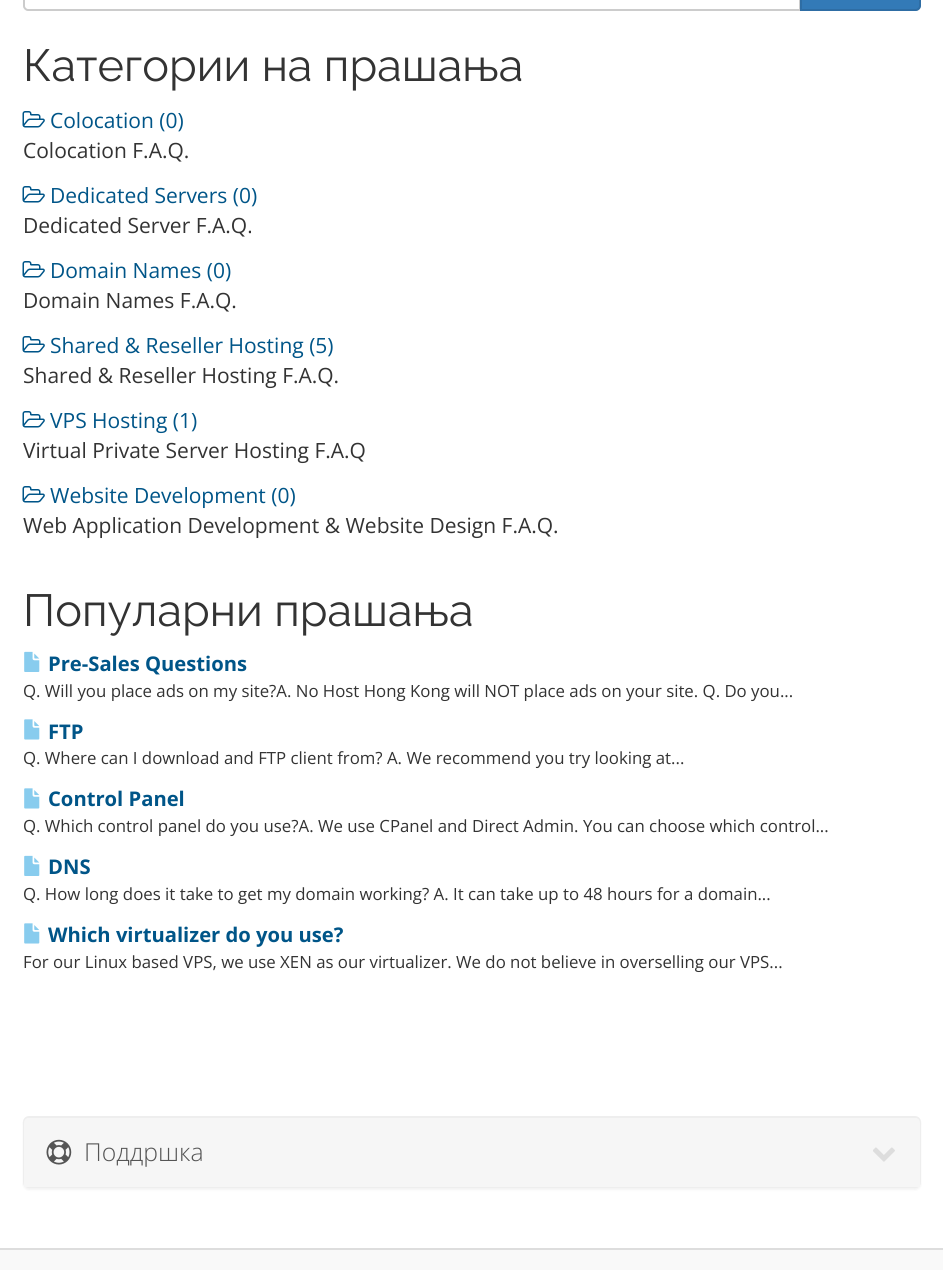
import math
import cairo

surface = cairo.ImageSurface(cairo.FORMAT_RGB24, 943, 1270)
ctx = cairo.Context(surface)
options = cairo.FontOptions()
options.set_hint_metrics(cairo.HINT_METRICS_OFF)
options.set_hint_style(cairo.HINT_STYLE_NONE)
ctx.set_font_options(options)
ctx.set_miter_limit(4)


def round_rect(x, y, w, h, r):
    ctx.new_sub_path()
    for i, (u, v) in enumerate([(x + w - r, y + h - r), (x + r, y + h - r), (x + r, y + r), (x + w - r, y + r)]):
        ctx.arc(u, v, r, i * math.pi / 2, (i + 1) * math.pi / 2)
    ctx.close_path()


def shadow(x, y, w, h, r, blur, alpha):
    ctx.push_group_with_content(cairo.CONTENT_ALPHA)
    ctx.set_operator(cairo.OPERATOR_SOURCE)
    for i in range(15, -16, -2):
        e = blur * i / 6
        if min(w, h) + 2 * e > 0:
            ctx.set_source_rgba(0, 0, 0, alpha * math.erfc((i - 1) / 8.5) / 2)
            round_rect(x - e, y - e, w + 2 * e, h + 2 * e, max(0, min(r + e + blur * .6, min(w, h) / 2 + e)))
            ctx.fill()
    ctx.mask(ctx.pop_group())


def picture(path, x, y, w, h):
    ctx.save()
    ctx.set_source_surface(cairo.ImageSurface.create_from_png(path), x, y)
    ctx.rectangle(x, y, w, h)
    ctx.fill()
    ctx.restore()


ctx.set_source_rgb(0.973, 0.973, 0.973)
ctx.paint()
ctx.set_source_rgb(1, 1, 1)
ctx.rectangle(0, 0, 943, 1248)
ctx.fill()
ctx.new_path()
ctx.move_to(28, -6)
ctx.line_to(800, -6)
ctx.line_to(800, 10)
ctx.line_to(28, 10)
ctx.curve_to(26, 10, 24, 8, 24, 6)
ctx.line_to(24, -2)
ctx.curve_to(24, -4, 26, -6, 28, -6)
ctx.close_path()
ctx.set_source_rgb(0.8, 0.8, 0.8)
ctx.stroke()
ctx.set_source_rgb(0.2, 0.478, 0.718)
ctx.new_path()
ctx.move_to(801, -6)
ctx.line_to(916, -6)
ctx.curve_to(918, -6, 920, -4, 920, -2)
ctx.line_to(920, 6)
ctx.curve_to(920, 8, 918, 10, 916, 10)
ctx.line_to(801, 10)
ctx.close_path()
ctx.fill_preserve()
ctx.set_source_rgb(0.18, 0.427, 0.643)
ctx.stroke()
ctx.select_font_face("Raleway")
ctx.set_font_size(45)
ctx.set_source_rgb(0.2, 0.2, 0.2)
ctx.move_to(23, 81)
ctx.show_text("Категории на прашања")
picture("img1.png", 22, 111, 23, 17)
ctx.select_font_face("Open Sans")
ctx.set_font_size(21)
ctx.set_source_rgb(0, 0.333, 0.533)
ctx.move_to(50, 128)
ctx.show_text("Colocation (0)")
ctx.set_source_rgb(0.2, 0.2, 0.2)
ctx.move_to(23, 158)
ctx.show_text("Colocation F.A.Q.")
picture("img1.png", 22, 186, 23, 17)
ctx.set_source_rgb(0, 0.333, 0.533)
ctx.move_to(50, 203)
ctx.show_text("Dedicated Servers (0)")
ctx.set_source_rgb(0.2, 0.2, 0.2)
ctx.move_to(23, 233)
ctx.show_text("Dedicated Server F.A.Q.")
picture("img1.png", 22, 261, 23, 17)
ctx.set_source_rgb(0, 0.333, 0.533)
ctx.move_to(50, 278)
ctx.show_text("Domain Names (0)")
ctx.set_source_rgb(0.2, 0.2, 0.2)
ctx.move_to(23, 308)
ctx.show_text("Domain Names F.A.Q.")
picture("img1.png", 22, 336, 23, 17)
ctx.set_source_rgb(0, 0.333, 0.533)
ctx.move_to(50, 353)
ctx.show_text("Shared & Reseller Hosting (5)")
ctx.set_source_rgb(0.2, 0.2, 0.2)
ctx.move_to(23, 383)
ctx.show_text("Shared & Reseller Hosting F.A.Q.")
picture("img1.png", 22, 411, 23, 17)
ctx.set_source_rgb(0, 0.333, 0.533)
ctx.move_to(50, 428)
ctx.show_text("VPS Hosting (1)")
ctx.set_source_rgb(0.2, 0.2, 0.2)
ctx.move_to(23, 458)
ctx.show_text("Virtual Private Server Hosting F.A.Q")
picture("img1.png", 22, 486, 23, 17)
ctx.set_source_rgb(0, 0.333, 0.533)
ctx.move_to(50, 503)
ctx.show_text("Website Development (0)")
ctx.set_source_rgb(0.2, 0.2, 0.2)
ctx.move_to(23, 533)
ctx.show_text("Web Application Development & Website Design F.A.Q.")
ctx.select_font_face("Raleway")
ctx.set_font_size(45)
ctx.move_to(23, 626)
ctx.show_text("Популарни прашања")
picture("img2.png", 24, 651, 16, 21)
ctx.select_font_face("Open Sans", cairo.FONT_SLANT_NORMAL, cairo.FONT_WEIGHT_BOLD)
ctx.set_font_size(20.2)
ctx.set_source_rgb(0, 0.333, 0.533)
ctx.move_to(48, 671)
ctx.show_text("Pre-Sales Questions")
ctx.select_font_face("Open Sans")
ctx.set_font_size(16.8)
ctx.set_source_rgb(0.2, 0.2, 0.2)
ctx.move_to(23, 697)
ctx.show_text("Q. Will you place ads on my site?A. No Host Hong Kong will NOT place ads on your site. Q. Do you...")
picture("img3.png", 24, 719, 16, 21)
ctx.select_font_face("Open Sans", cairo.FONT_SLANT_NORMAL, cairo.FONT_WEIGHT_BOLD)
ctx.set_font_size(20.2)
ctx.set_source_rgb(0, 0.333, 0.533)
ctx.move_to(48, 739)
ctx.show_text("FTP")
ctx.select_font_face("Open Sans")
ctx.set_font_size(16.8)
ctx.set_source_rgb(0.2, 0.2, 0.2)
ctx.move_to(23, 764)
ctx.show_text("Q. Where can I download and FTP client from? A. We recommend you try looking at...")
picture("img3.png", 24, 788, 16, 21)
ctx.select_font_face("Open Sans", cairo.FONT_SLANT_NORMAL, cairo.FONT_WEIGHT_BOLD)
ctx.set_font_size(20.2)
ctx.set_source_rgb(0, 0.333, 0.533)
ctx.move_to(48, 806)
ctx.show_text("Control Panel")
ctx.select_font_face("Open Sans")
ctx.set_font_size(16.8)
ctx.set_source_rgb(0.2, 0.2, 0.2)
ctx.move_to(23, 832)
ctx.show_text("Q. Which control panel do you use?A. We use CPanel and Direct Admin. You can choose which control...")
picture("img2.png", 24, 855, 16, 21)
ctx.select_font_face("Open Sans", cairo.FONT_SLANT_NORMAL, cairo.FONT_WEIGHT_BOLD)
ctx.set_font_size(20.2)
ctx.set_source_rgb(0, 0.333, 0.533)
ctx.move_to(48, 874)
ctx.show_text("DNS")
ctx.select_font_face("Open Sans")
ctx.set_font_size(16.8)
ctx.set_source_rgb(0.2, 0.2, 0.2)
ctx.move_to(23, 900)
ctx.show_text("Q. How long does it take to get my domain working? A. It can take up to 48 hours for a domain...")
picture("img3.png", 24, 923, 16, 21)
ctx.select_font_face("Open Sans", cairo.FONT_SLANT_NORMAL, cairo.FONT_WEIGHT_BOLD)
ctx.set_font_size(20.2)
ctx.set_source_rgb(0, 0.333, 0.533)
ctx.move_to(48, 942)
ctx.show_text("Which virtualizer do you use?")
ctx.select_font_face("Open Sans")
ctx.set_font_size(16.8)
ctx.set_source_rgb(0.2, 0.2, 0.2)
ctx.move_to(23, 968)
ctx.show_text("For our Linux based VPS, we use XEN as our virtualizer. We do not believe in overselling our VPS...")
ctx.set_source_rgb(0, 0, 0)
shadow(23, 1118, 898, 72, 6, 1, 0.05)
round_rect(24, 1117, 896, 70, 5)
ctx.set_source_rgb(0.933, 0.933, 0.933)
ctx.stroke()
ctx.set_source_rgb(0.961, 0.961, 0.961)
ctx.new_path()
ctx.move_to(29, 1118)
ctx.line_to(915, 1118)
ctx.curve_to(918, 1118, 920, 1120, 920, 1123)
ctx.line_to(920, 1187)
ctx.line_to(24, 1187)
ctx.line_to(24, 1123)
ctx.curve_to(24, 1120, 26, 1118, 29, 1118)
ctx.close_path()
ctx.fill()
picture("img4.png", 46, 1139, 26, 26)
ctx.select_font_face("Open Sans Light")
ctx.set_font_size(24.75)
ctx.set_source_rgb(0.333, 0.333, 0.333)
ctx.move_to(84, 1161)
ctx.show_text("Поддршка")
picture("img5.png", 873, 1147, 22, 15)
ctx.set_source_rgb(0.867, 0.867, 0.867)
ctx.rectangle(0, 1248, 943, 2)
ctx.fill()
surface.write_to_png("page.png")
